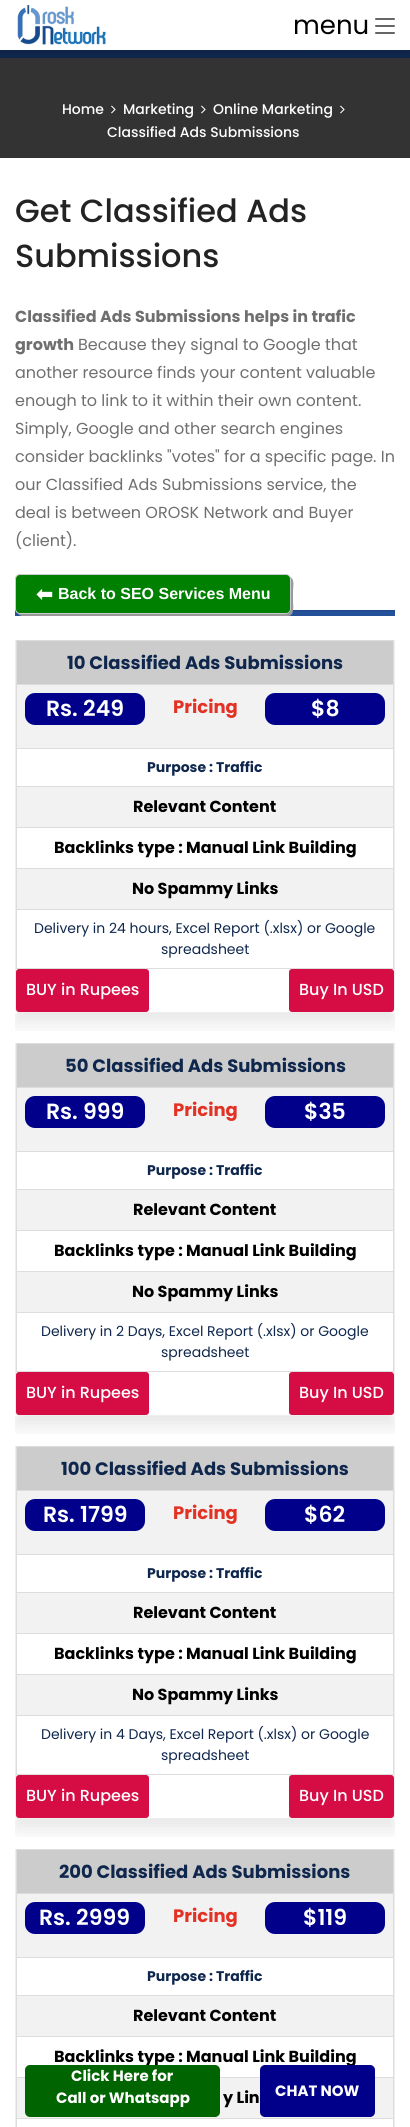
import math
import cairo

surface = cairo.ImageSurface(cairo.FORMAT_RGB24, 410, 2127)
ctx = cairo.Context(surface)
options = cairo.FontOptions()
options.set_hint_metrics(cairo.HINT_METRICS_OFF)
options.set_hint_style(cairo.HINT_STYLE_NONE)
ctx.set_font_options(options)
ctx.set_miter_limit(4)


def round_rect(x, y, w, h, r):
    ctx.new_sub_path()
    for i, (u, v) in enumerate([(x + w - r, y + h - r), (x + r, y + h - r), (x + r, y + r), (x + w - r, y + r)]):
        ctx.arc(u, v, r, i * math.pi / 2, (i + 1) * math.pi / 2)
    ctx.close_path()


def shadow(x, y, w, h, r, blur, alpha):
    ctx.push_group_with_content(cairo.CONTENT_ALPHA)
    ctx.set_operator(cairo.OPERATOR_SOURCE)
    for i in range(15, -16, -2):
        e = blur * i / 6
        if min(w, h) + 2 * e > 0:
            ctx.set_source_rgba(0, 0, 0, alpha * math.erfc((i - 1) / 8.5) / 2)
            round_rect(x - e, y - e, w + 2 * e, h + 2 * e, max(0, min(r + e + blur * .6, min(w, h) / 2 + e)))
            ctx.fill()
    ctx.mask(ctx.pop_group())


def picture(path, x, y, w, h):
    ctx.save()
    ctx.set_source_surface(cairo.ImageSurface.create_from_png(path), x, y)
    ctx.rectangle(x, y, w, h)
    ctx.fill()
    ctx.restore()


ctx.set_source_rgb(1, 1, 1)
ctx.paint()
picture("img2.png", 0, 50, 410, 8)
ctx.set_source_rgb(0.2, 0.2, 0.2)
ctx.rectangle(0, 58, 410, 100)
ctx.fill()
ctx.set_source_rgb(0, 0, 0)
shadow(0, 2, 410, 50, 0, 2.5, 0.1)
ctx.set_source_rgb(1, 1, 1)
ctx.rectangle(0, 0, 410, 50)
ctx.fill()
picture("img1.png", 17, 5, 89, 40)
ctx.select_font_face("Poppins")
ctx.set_font_size(26)
ctx.set_source_rgb(0, 0, 0)
ctx.move_to(293, 34)
ctx.show_text("menu")
ctx.set_source_rgb(0.4, 0.4, 0.4)
round_rect(375, 18, 20, 2, 1)
ctx.fill()
round_rect(375, 25, 20, 2, 1)
ctx.fill()
round_rect(375, 32, 20, 2, 1)
ctx.fill()
ctx.select_font_face("Poppins Medium")
ctx.set_font_size(14)
ctx.set_source_rgb(1, 1, 1)
ctx.move_to(62, 114)
ctx.show_text("Home")
picture("img3.png", 111, 105, 5, 9)
ctx.move_to(123, 114)
ctx.show_text("Marketing")
picture("img3.png", 201, 105, 5, 9)
ctx.move_to(213, 114)
ctx.show_text("Online Marketing")
picture("img3.png", 340, 105, 5, 9)
ctx.move_to(107, 137)
ctx.show_text("Classified Ads Submissions")
ctx.set_font_size(32)
ctx.set_source_rgb(0.137, 0.137, 0.137)
ctx.move_to(15, 222)
ctx.show_text("Get Classified Ads")
ctx.move_to(15, 267)
ctx.show_text("Submissions")
ctx.select_font_face("Poppins", cairo.FONT_SLANT_NORMAL, cairo.FONT_WEIGHT_BOLD)
ctx.set_font_size(16)
ctx.set_source_rgb(0.435, 0.435, 0.435)
ctx.move_to(15, 322)
ctx.show_text("Classified Ads Submissions helps in trafic")
ctx.move_to(15, 350)
ctx.show_text("growth")
ctx.select_font_face("Poppins")
ctx.move_to(78, 350)
ctx.show_text("Because they signal to Google that")
ctx.move_to(15, 378)
ctx.show_text("another resource finds your content valuable")
ctx.move_to(15, 406)
ctx.show_text("enough to link to it within their own content.")
ctx.move_to(15, 434)
ctx.show_text("Simply, Google and other search engines")
ctx.move_to(15, 462)
ctx.show_text("consider backlinks \"votes\" for a specific page. In")
ctx.move_to(15, 490)
ctx.show_text("our Classified Ads Submissions service, the")
ctx.move_to(15, 518)
ctx.show_text("deal is between OROSK Network and Buyer")
ctx.move_to(15, 546)
ctx.show_text("(client).")
ctx.set_source_rgb(0.137, 0.314, 0.6)
ctx.rectangle(15, 611, 380, 5)
ctx.fill()
ctx.set_source_rgb(0.125, 0.282, 0.541)
ctx.rectangle(15, 610, 380, 1)
ctx.fill()
ctx.set_source_rgb(0.6, 0.6, 0.6)
ctx.new_path()
ctx.move_to(18, 613)
ctx.line_to(19, 615)
ctx.line_to(22, 616)
ctx.line_to(288, 616)
ctx.curve_to(295, 616, 293, 605, 293, 601)
ctx.line_to(293, 591)
ctx.curve_to(293, 587, 295, 579, 290, 577)
ctx.line_to(291, 579)
ctx.line_to(291, 609)
ctx.curve_to(291, 612, 289, 614, 286, 614)
ctx.line_to(20, 614)
ctx.close_path()
ctx.fill()
ctx.set_source_rgb(0, 0.502, 0)
round_rect(15.5, 574.5, 275, 39, 4.5)
ctx.fill_preserve()
ctx.set_source_rgb(0.8, 0.8, 0.8)
ctx.set_line_width(1)
ctx.stroke()
ctx.select_font_face("DejaVu Sans", cairo.FONT_SLANT_NORMAL, cairo.FONT_WEIGHT_BOLD)
ctx.set_font_size(20)
ctx.set_source_rgb(1, 1, 1)
ctx.move_to(36, 601)
ctx.show_text("⬅")
ctx.select_font_face("Liberation Sans", cairo.FONT_SLANT_NORMAL, cairo.FONT_WEIGHT_BOLD)
ctx.set_font_size(16)
ctx.move_to(58, 599)
ctx.show_text("Back to SEO Services Menu")
ctx.save()
ctx.rectangle(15, 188, 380, 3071)
ctx.clip()
ctx.rectangle(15, 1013, 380, 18)
ctx.clip()
ctx.set_source_rgb(0, 0, 0)
shadow(15, 650, 380, 373, 0, 10, 0.1)
ctx.restore()
ctx.set_source_rgb(0.933, 0.933, 0.933)
ctx.set_fill_rule(cairo.FILL_RULE_EVEN_ODD)
ctx.new_path()
ctx.move_to(15, 640)
ctx.line_to(395, 640)
ctx.line_to(395, 1009)
ctx.curve_to(395, 1011, 393, 1013, 391, 1013)
ctx.line_to(19, 1013)
ctx.curve_to(17, 1013, 15, 1011, 15, 1009)
ctx.close_path()
ctx.move_to(16, 640)
ctx.line_to(394, 640)
ctx.line_to(394, 1009)
ctx.curve_to(394, 1011, 393, 1012, 391, 1012)
ctx.line_to(19, 1012)
ctx.curve_to(17, 1012, 16, 1011, 16, 1009)
ctx.close_path()
ctx.fill()
ctx.set_source_rgb(0.8, 0.8, 0.8)
ctx.rectangle(17, 641, 376, 43)
ctx.fill()
ctx.set_source_rgb(0.867, 0.867, 0.867)
ctx.rectangle(16, 640, 378, 1)
ctx.fill()
ctx.rectangle(16, 684, 378, 1)
ctx.fill()
ctx.rectangle(16, 748, 378, 1)
ctx.fill()
ctx.rectangle(16, 786, 378, 1)
ctx.fill()
ctx.rectangle(16, 827, 378, 1)
ctx.fill()
ctx.rectangle(16, 868, 378, 1)
ctx.fill()
ctx.rectangle(16, 909, 378, 1)
ctx.fill()
ctx.rectangle(393, 909, 1, 60)
ctx.fill()
ctx.rectangle(393, 868, 1, 42)
ctx.fill()
ctx.rectangle(393, 827, 1, 42)
ctx.fill()
ctx.rectangle(393, 786, 1, 42)
ctx.fill()
ctx.rectangle(393, 748, 1, 39)
ctx.fill()
ctx.rectangle(393, 684, 1, 65)
ctx.fill()
ctx.rectangle(393, 640, 1, 45)
ctx.fill()
ctx.rectangle(16, 968, 378, 1)
ctx.fill()
ctx.rectangle(16, 909, 1, 60)
ctx.fill()
ctx.rectangle(16, 868, 1, 42)
ctx.fill()
ctx.rectangle(16, 827, 1, 42)
ctx.fill()
ctx.rectangle(16, 786, 1, 42)
ctx.fill()
ctx.rectangle(16, 748, 1, 39)
ctx.fill()
ctx.rectangle(16, 684, 1, 65)
ctx.fill()
ctx.rectangle(16, 640, 1, 45)
ctx.fill()
ctx.select_font_face("Poppins", cairo.FONT_SLANT_NORMAL, cairo.FONT_WEIGHT_BOLD)
ctx.set_font_size(18)
ctx.set_source_rgb(0.059, 0.153, 0.302)
ctx.move_to(67, 669)
ctx.show_text("10 Classified Ads Submissions")
ctx.set_source_rgb(0.949, 0.949, 0.949)
ctx.rectangle(17, 685, 376, 63)
ctx.fill()
ctx.set_source_rgb(0, 0, 0.545)
round_rect(25, 693, 120, 32, 10)
ctx.fill()
ctx.select_font_face("Poppins SemiBold")
ctx.set_font_size(22)
ctx.set_source_rgb(1, 1, 1)
ctx.move_to(46, 716)
ctx.show_text("Rs. 249")
ctx.select_font_face("Poppins", cairo.FONT_SLANT_NORMAL, cairo.FONT_WEIGHT_BOLD)
ctx.set_font_size(18)
ctx.set_source_rgb(0.89, 0.192, 0.141)
ctx.move_to(173, 713)
ctx.show_text("Pricing")
ctx.set_source_rgb(0, 0, 0.545)
round_rect(265, 693, 120, 32, 10)
ctx.fill()
ctx.select_font_face("Poppins SemiBold")
ctx.set_font_size(22)
ctx.set_source_rgb(1, 1, 1)
ctx.move_to(311, 716)
ctx.show_text("$8")
ctx.select_font_face("Poppins", cairo.FONT_SLANT_NORMAL, cairo.FONT_WEIGHT_BOLD)
ctx.set_font_size(14)
ctx.set_source_rgb(0.059, 0.153, 0.302)
ctx.move_to(147, 772)
ctx.show_text("Purpose : Traffic")
ctx.set_source_rgb(0.949, 0.949, 0.949)
ctx.rectangle(17, 787, 376, 40)
ctx.fill()
ctx.set_font_size(16)
ctx.set_source_rgb(0, 0, 0)
ctx.move_to(133, 812)
ctx.show_text("Relevant Content")
ctx.move_to(54, 853)
ctx.show_text("Backlinks type : Manual Link Building")
ctx.set_source_rgb(0.949, 0.949, 0.949)
ctx.rectangle(17, 869, 376, 40)
ctx.fill()
ctx.set_source_rgb(0, 0, 0)
ctx.move_to(132, 894)
ctx.show_text("No Spammy Links")
ctx.select_font_face("Poppins")
ctx.set_font_size(14)
ctx.set_source_rgb(0.059, 0.153, 0.302)
ctx.move_to(34, 933)
ctx.show_text("Delivery in 24 hours, Excel Report (.xlsx) or Google")
ctx.move_to(161, 954)
ctx.show_text("spreadsheet")
ctx.set_source_rgb(0.839, 0.051, 0.271)
round_rect(16, 969, 133, 43, 3)
ctx.fill()
ctx.select_font_face("Poppins Medium")
ctx.set_font_size(16)
ctx.set_source_rgb(1, 1, 1)
ctx.move_to(26, 995)
ctx.show_text("BUY in Rupees")
ctx.set_source_rgb(0.839, 0.051, 0.271)
round_rect(289, 969, 105, 43, 3)
ctx.fill()
ctx.set_source_rgb(1, 1, 1)
ctx.move_to(299, 995)
ctx.show_text("Buy In USD")
ctx.save()
ctx.set_fill_rule(cairo.FILL_RULE_WINDING)
ctx.rectangle(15, 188, 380, 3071)
ctx.clip()
ctx.rectangle(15, 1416, 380, 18)
ctx.clip()
ctx.set_source_rgb(0, 0, 0)
shadow(15, 1053, 380, 373, 0, 10, 0.1)
ctx.restore()
ctx.set_source_rgb(0.933, 0.933, 0.933)
ctx.new_path()
ctx.move_to(15, 1043)
ctx.line_to(395, 1043)
ctx.line_to(395, 1412)
ctx.curve_to(395, 1414, 393, 1416, 391, 1416)
ctx.line_to(19, 1416)
ctx.curve_to(17, 1416, 15, 1414, 15, 1412)
ctx.close_path()
ctx.move_to(16, 1043)
ctx.line_to(394, 1043)
ctx.line_to(394, 1412)
ctx.curve_to(394, 1414, 393, 1415, 391, 1415)
ctx.line_to(19, 1415)
ctx.curve_to(17, 1415, 16, 1414, 16, 1412)
ctx.close_path()
ctx.fill()
ctx.set_source_rgb(0.8, 0.8, 0.8)
ctx.rectangle(17, 1044, 376, 43)
ctx.fill()
ctx.set_source_rgb(0.867, 0.867, 0.867)
ctx.rectangle(16, 1043, 378, 1)
ctx.fill()
ctx.rectangle(16, 1087, 378, 1)
ctx.fill()
ctx.rectangle(16, 1151, 378, 1)
ctx.fill()
ctx.rectangle(16, 1189, 378, 1)
ctx.fill()
ctx.rectangle(16, 1230, 378, 1)
ctx.fill()
ctx.rectangle(16, 1271, 378, 1)
ctx.fill()
ctx.rectangle(16, 1312, 378, 1)
ctx.fill()
ctx.rectangle(393, 1312, 1, 60)
ctx.fill()
ctx.rectangle(393, 1271, 1, 42)
ctx.fill()
ctx.rectangle(393, 1230, 1, 42)
ctx.fill()
ctx.rectangle(393, 1189, 1, 42)
ctx.fill()
ctx.rectangle(393, 1151, 1, 39)
ctx.fill()
ctx.rectangle(393, 1087, 1, 65)
ctx.fill()
ctx.rectangle(393, 1043, 1, 45)
ctx.fill()
ctx.rectangle(16, 1371, 378, 1)
ctx.fill()
ctx.rectangle(16, 1312, 1, 60)
ctx.fill()
ctx.rectangle(16, 1271, 1, 42)
ctx.fill()
ctx.rectangle(16, 1230, 1, 42)
ctx.fill()
ctx.rectangle(16, 1189, 1, 42)
ctx.fill()
ctx.rectangle(16, 1151, 1, 39)
ctx.fill()
ctx.rectangle(16, 1087, 1, 65)
ctx.fill()
ctx.rectangle(16, 1043, 1, 45)
ctx.fill()
ctx.select_font_face("Poppins", cairo.FONT_SLANT_NORMAL, cairo.FONT_WEIGHT_BOLD)
ctx.set_font_size(18)
ctx.set_source_rgb(0.059, 0.153, 0.302)
ctx.move_to(65, 1072)
ctx.show_text("50 Classified Ads Submissions")
ctx.set_source_rgb(0.949, 0.949, 0.949)
ctx.rectangle(17, 1088, 376, 63)
ctx.fill()
ctx.set_source_rgb(0, 0, 0.545)
round_rect(25, 1096, 120, 32, 10)
ctx.fill()
ctx.select_font_face("Poppins SemiBold")
ctx.set_font_size(22)
ctx.set_source_rgb(1, 1, 1)
ctx.move_to(46, 1119)
ctx.show_text("Rs. 999")
ctx.select_font_face("Poppins", cairo.FONT_SLANT_NORMAL, cairo.FONT_WEIGHT_BOLD)
ctx.set_font_size(18)
ctx.set_source_rgb(0.89, 0.192, 0.141)
ctx.move_to(173, 1116)
ctx.show_text("Pricing")
ctx.set_source_rgb(0, 0, 0.545)
round_rect(265, 1096, 120, 32, 10)
ctx.fill()
ctx.select_font_face("Poppins SemiBold")
ctx.set_font_size(22)
ctx.set_source_rgb(1, 1, 1)
ctx.move_to(304, 1119)
ctx.show_text("$35")
ctx.select_font_face("Poppins", cairo.FONT_SLANT_NORMAL, cairo.FONT_WEIGHT_BOLD)
ctx.set_font_size(14)
ctx.set_source_rgb(0.059, 0.153, 0.302)
ctx.move_to(147, 1175)
ctx.show_text("Purpose : Traffic")
ctx.set_source_rgb(0.949, 0.949, 0.949)
ctx.rectangle(17, 1190, 376, 40)
ctx.fill()
ctx.set_font_size(16)
ctx.set_source_rgb(0, 0, 0)
ctx.move_to(133, 1215)
ctx.show_text("Relevant Content")
ctx.move_to(54, 1256)
ctx.show_text("Backlinks type : Manual Link Building")
ctx.set_source_rgb(0.949, 0.949, 0.949)
ctx.rectangle(17, 1272, 376, 40)
ctx.fill()
ctx.set_source_rgb(0, 0, 0)
ctx.move_to(132, 1297)
ctx.show_text("No Spammy Links")
ctx.select_font_face("Poppins")
ctx.set_font_size(14)
ctx.set_source_rgb(0.059, 0.153, 0.302)
ctx.move_to(41, 1336)
ctx.show_text("Delivery in 2 Days, Excel Report (.xlsx) or Google")
ctx.move_to(161, 1357)
ctx.show_text("spreadsheet")
ctx.set_source_rgb(0.839, 0.051, 0.271)
round_rect(16, 1372, 133, 43, 3)
ctx.fill()
ctx.select_font_face("Poppins Medium")
ctx.set_font_size(16)
ctx.set_source_rgb(1, 1, 1)
ctx.move_to(26, 1398)
ctx.show_text("BUY in Rupees")
ctx.set_source_rgb(0.839, 0.051, 0.271)
round_rect(289, 1372, 105, 43, 3)
ctx.fill()
ctx.set_source_rgb(1, 1, 1)
ctx.move_to(299, 1398)
ctx.show_text("Buy In USD")
ctx.save()
ctx.set_fill_rule(cairo.FILL_RULE_WINDING)
ctx.rectangle(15, 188, 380, 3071)
ctx.clip()
ctx.rectangle(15, 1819, 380, 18)
ctx.clip()
ctx.set_source_rgb(0, 0, 0)
shadow(15, 1456, 380, 373, 0, 10, 0.1)
ctx.restore()
ctx.set_source_rgb(0.933, 0.933, 0.933)
ctx.new_path()
ctx.move_to(15, 1446)
ctx.line_to(395, 1446)
ctx.line_to(395, 1815)
ctx.curve_to(395, 1817, 393, 1819, 391, 1819)
ctx.line_to(19, 1819)
ctx.curve_to(17, 1819, 15, 1817, 15, 1815)
ctx.close_path()
ctx.move_to(16, 1446)
ctx.line_to(394, 1446)
ctx.line_to(394, 1815)
ctx.curve_to(394, 1817, 393, 1818, 391, 1818)
ctx.line_to(19, 1818)
ctx.curve_to(17, 1818, 16, 1817, 16, 1815)
ctx.close_path()
ctx.fill()
ctx.set_source_rgb(0.8, 0.8, 0.8)
ctx.rectangle(17, 1447, 376, 43)
ctx.fill()
ctx.set_source_rgb(0.867, 0.867, 0.867)
ctx.rectangle(16, 1446, 378, 1)
ctx.fill()
ctx.rectangle(16, 1490, 378, 1)
ctx.fill()
ctx.rectangle(16, 1554, 378, 1)
ctx.fill()
ctx.rectangle(16, 1592, 378, 1)
ctx.fill()
ctx.rectangle(16, 1633, 378, 1)
ctx.fill()
ctx.rectangle(16, 1674, 378, 1)
ctx.fill()
ctx.rectangle(16, 1715, 378, 1)
ctx.fill()
ctx.rectangle(393, 1715, 1, 60)
ctx.fill()
ctx.rectangle(393, 1674, 1, 42)
ctx.fill()
ctx.rectangle(393, 1633, 1, 42)
ctx.fill()
ctx.rectangle(393, 1592, 1, 42)
ctx.fill()
ctx.rectangle(393, 1554, 1, 39)
ctx.fill()
ctx.rectangle(393, 1490, 1, 65)
ctx.fill()
ctx.rectangle(393, 1446, 1, 45)
ctx.fill()
ctx.rectangle(16, 1774, 378, 1)
ctx.fill()
ctx.rectangle(16, 1715, 1, 60)
ctx.fill()
ctx.rectangle(16, 1674, 1, 42)
ctx.fill()
ctx.rectangle(16, 1633, 1, 42)
ctx.fill()
ctx.rectangle(16, 1592, 1, 42)
ctx.fill()
ctx.rectangle(16, 1554, 1, 39)
ctx.fill()
ctx.rectangle(16, 1490, 1, 65)
ctx.fill()
ctx.rectangle(16, 1446, 1, 45)
ctx.fill()
ctx.select_font_face("Poppins", cairo.FONT_SLANT_NORMAL, cairo.FONT_WEIGHT_BOLD)
ctx.set_font_size(18)
ctx.set_source_rgb(0.059, 0.153, 0.302)
ctx.move_to(61, 1475)
ctx.show_text("100 Classified Ads Submissions")
ctx.set_source_rgb(0.949, 0.949, 0.949)
ctx.rectangle(17, 1491, 376, 63)
ctx.fill()
ctx.set_source_rgb(0, 0, 0.545)
round_rect(25, 1499, 120, 32, 10)
ctx.fill()
ctx.select_font_face("Poppins SemiBold")
ctx.set_font_size(22)
ctx.set_source_rgb(1, 1, 1)
ctx.move_to(43, 1522)
ctx.show_text("Rs. 1799")
ctx.select_font_face("Poppins", cairo.FONT_SLANT_NORMAL, cairo.FONT_WEIGHT_BOLD)
ctx.set_font_size(18)
ctx.set_source_rgb(0.89, 0.192, 0.141)
ctx.move_to(173, 1519)
ctx.show_text("Pricing")
ctx.set_source_rgb(0, 0, 0.545)
round_rect(265, 1499, 120, 32, 10)
ctx.fill()
ctx.select_font_face("Poppins SemiBold")
ctx.set_font_size(22)
ctx.set_source_rgb(1, 1, 1)
ctx.move_to(304, 1522)
ctx.show_text("$62")
ctx.select_font_face("Poppins", cairo.FONT_SLANT_NORMAL, cairo.FONT_WEIGHT_BOLD)
ctx.set_font_size(14)
ctx.set_source_rgb(0.059, 0.153, 0.302)
ctx.move_to(147, 1578)
ctx.show_text("Purpose : Traffic")
ctx.set_source_rgb(0.949, 0.949, 0.949)
ctx.rectangle(17, 1593, 376, 40)
ctx.fill()
ctx.set_font_size(16)
ctx.set_source_rgb(0, 0, 0)
ctx.move_to(133, 1618)
ctx.show_text("Relevant Content")
ctx.move_to(54, 1659)
ctx.show_text("Backlinks type : Manual Link Building")
ctx.set_source_rgb(0.949, 0.949, 0.949)
ctx.rectangle(17, 1675, 376, 40)
ctx.fill()
ctx.set_source_rgb(0, 0, 0)
ctx.move_to(132, 1700)
ctx.show_text("No Spammy Links")
ctx.select_font_face("Poppins")
ctx.set_font_size(14)
ctx.set_source_rgb(0.059, 0.153, 0.302)
ctx.move_to(41, 1739)
ctx.show_text("Delivery in 4 Days, Excel Report (.xlsx) or Google")
ctx.move_to(161, 1760)
ctx.show_text("spreadsheet")
ctx.set_source_rgb(0.839, 0.051, 0.271)
round_rect(16, 1775, 133, 43, 3)
ctx.fill()
ctx.select_font_face("Poppins Medium")
ctx.set_font_size(16)
ctx.set_source_rgb(1, 1, 1)
ctx.move_to(26, 1801)
ctx.show_text("BUY in Rupees")
ctx.set_source_rgb(0.839, 0.051, 0.271)
round_rect(289, 1775, 105, 43, 3)
ctx.fill()
ctx.set_source_rgb(1, 1, 1)
ctx.move_to(299, 1801)
ctx.show_text("Buy In USD")
ctx.set_source_rgb(0.933, 0.933, 0.933)
ctx.new_path()
ctx.move_to(15, 1849)
ctx.line_to(395, 1849)
ctx.line_to(395, 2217)
ctx.curve_to(395, 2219, 393, 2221, 391, 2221)
ctx.line_to(19, 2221)
ctx.curve_to(17, 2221, 15, 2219, 15, 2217)
ctx.close_path()
ctx.move_to(16, 1849)
ctx.line_to(394, 1849)
ctx.line_to(394, 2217)
ctx.curve_to(394, 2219, 393, 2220, 391, 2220)
ctx.line_to(19, 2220)
ctx.curve_to(17, 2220, 16, 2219, 16, 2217)
ctx.close_path()
ctx.fill()
ctx.set_source_rgb(0.8, 0.8, 0.8)
ctx.rectangle(17, 1850, 376, 43)
ctx.fill()
ctx.set_source_rgb(0.867, 0.867, 0.867)
ctx.rectangle(16, 1849, 378, 1)
ctx.fill()
ctx.rectangle(16, 1893, 378, 1)
ctx.fill()
ctx.rectangle(16, 1957, 378, 1)
ctx.fill()
ctx.rectangle(16, 1995, 378, 1)
ctx.fill()
ctx.rectangle(16, 2036, 378, 1)
ctx.fill()
ctx.rectangle(16, 2077, 378, 1)
ctx.fill()
ctx.rectangle(16, 2118, 378, 1)
ctx.fill()
ctx.rectangle(393, 2118, 1, 9)
ctx.fill()
ctx.rectangle(393, 2077, 1, 42)
ctx.fill()
ctx.rectangle(393, 2036, 1, 42)
ctx.fill()
ctx.rectangle(393, 1995, 1, 42)
ctx.fill()
ctx.rectangle(393, 1957, 1, 39)
ctx.fill()
ctx.rectangle(393, 1893, 1, 65)
ctx.fill()
ctx.rectangle(393, 1849, 1, 45)
ctx.fill()
ctx.rectangle(16, 2118, 1, 9)
ctx.fill()
ctx.rectangle(16, 2077, 1, 42)
ctx.fill()
ctx.rectangle(16, 2036, 1, 42)
ctx.fill()
ctx.rectangle(16, 1995, 1, 42)
ctx.fill()
ctx.rectangle(16, 1957, 1, 39)
ctx.fill()
ctx.rectangle(16, 1893, 1, 65)
ctx.fill()
ctx.rectangle(16, 1849, 1, 45)
ctx.fill()
ctx.select_font_face("Poppins", cairo.FONT_SLANT_NORMAL, cairo.FONT_WEIGHT_BOLD)
ctx.set_font_size(18)
ctx.set_source_rgb(0.059, 0.153, 0.302)
ctx.move_to(59, 1878)
ctx.show_text("200 Classified Ads Submissions")
ctx.set_source_rgb(0.949, 0.949, 0.949)
ctx.rectangle(17, 1894, 376, 63)
ctx.fill()
ctx.set_source_rgb(0, 0, 0.545)
round_rect(25, 1902, 120, 32, 10)
ctx.fill()
ctx.select_font_face("Poppins SemiBold")
ctx.set_font_size(22)
ctx.set_source_rgb(1, 1, 1)
ctx.move_to(39, 1925)
ctx.show_text("Rs. 2999")
ctx.select_font_face("Poppins", cairo.FONT_SLANT_NORMAL, cairo.FONT_WEIGHT_BOLD)
ctx.set_font_size(18)
ctx.set_source_rgb(0.89, 0.192, 0.141)
ctx.move_to(173, 1922)
ctx.show_text("Pricing")
ctx.set_source_rgb(0, 0, 0.545)
round_rect(265, 1902, 120, 32, 10)
ctx.fill()
ctx.select_font_face("Poppins SemiBold")
ctx.set_font_size(22)
ctx.set_source_rgb(1, 1, 1)
ctx.move_to(303, 1925)
ctx.show_text("$119")
ctx.select_font_face("Poppins", cairo.FONT_SLANT_NORMAL, cairo.FONT_WEIGHT_BOLD)
ctx.set_font_size(14)
ctx.set_source_rgb(0.059, 0.153, 0.302)
ctx.move_to(147, 1981)
ctx.show_text("Purpose : Traffic")
ctx.set_source_rgb(0.949, 0.949, 0.949)
ctx.rectangle(17, 1996, 376, 40)
ctx.fill()
ctx.set_font_size(16)
ctx.set_source_rgb(0, 0, 0)
ctx.move_to(133, 2021)
ctx.show_text("Relevant Content")
ctx.move_to(54, 2062)
ctx.show_text("Backlinks type : Manual Link Building")
ctx.set_source_rgb(0.949, 0.949, 0.949)
ctx.rectangle(17, 2078, 376, 40)
ctx.fill()
ctx.set_source_rgb(0, 0, 0)
ctx.move_to(223, 2103)
ctx.show_text("y Lin")
ctx.set_source_rgb(0, 0.392, 0)
round_rect(25, 2065, 195, 52, 5)
ctx.fill()
ctx.set_font_size(15)
ctx.set_source_rgb(1, 1, 1)
ctx.move_to(71, 2081)
ctx.show_text("Click Here for")
ctx.move_to(56, 2103)
ctx.show_text("Call or Whatsapp")
ctx.set_source_rgb(0, 0, 0.545)
round_rect(260, 2065, 115, 52, 5)
ctx.fill()
ctx.set_source_rgb(1, 1, 1)
ctx.move_to(275, 2096)
ctx.show_text("CHAT NOW")
surface.write_to_png("page.png")
